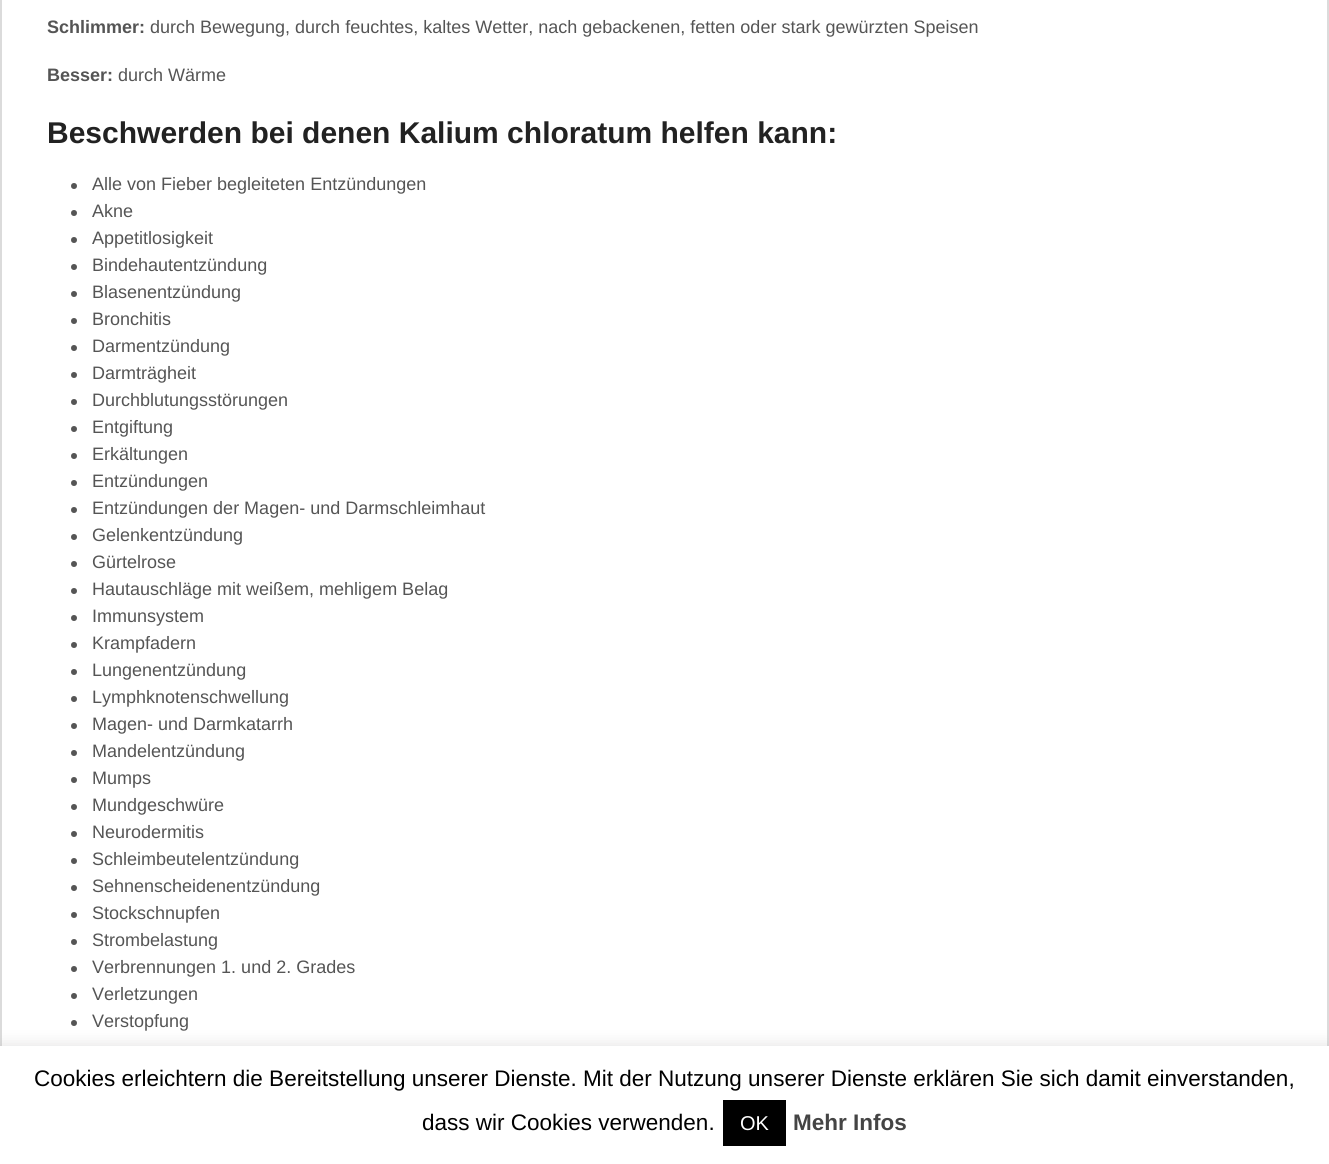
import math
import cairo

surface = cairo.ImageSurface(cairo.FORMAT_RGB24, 1329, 1164)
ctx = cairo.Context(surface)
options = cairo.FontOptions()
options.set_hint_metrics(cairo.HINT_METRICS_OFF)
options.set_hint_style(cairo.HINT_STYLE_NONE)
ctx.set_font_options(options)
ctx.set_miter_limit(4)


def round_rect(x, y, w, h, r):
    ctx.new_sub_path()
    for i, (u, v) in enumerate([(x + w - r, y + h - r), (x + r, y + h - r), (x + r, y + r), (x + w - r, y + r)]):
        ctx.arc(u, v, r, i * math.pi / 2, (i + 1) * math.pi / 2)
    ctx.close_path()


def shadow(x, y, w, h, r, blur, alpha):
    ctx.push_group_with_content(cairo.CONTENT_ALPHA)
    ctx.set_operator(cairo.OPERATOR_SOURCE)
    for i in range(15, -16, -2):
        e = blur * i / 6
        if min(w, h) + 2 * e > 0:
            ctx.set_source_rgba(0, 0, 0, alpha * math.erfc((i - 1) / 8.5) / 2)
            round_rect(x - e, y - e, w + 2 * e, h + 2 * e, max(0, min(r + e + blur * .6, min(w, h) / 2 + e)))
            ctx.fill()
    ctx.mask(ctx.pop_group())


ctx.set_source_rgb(1, 1, 1)
ctx.paint()
ctx.rectangle(1, -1, 1327, 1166)
ctx.set_source_rgb(0.859, 0.859, 0.859)
ctx.stroke()
ctx.select_font_face("Liberation Sans", cairo.FONT_SLANT_NORMAL, cairo.FONT_WEIGHT_BOLD)
ctx.set_font_size(18)
ctx.set_source_rgb(0.333, 0.333, 0.333)
ctx.move_to(47, 33)
ctx.show_text("Schlimmer:")
ctx.select_font_face("Liberation Sans")
ctx.move_to(150, 33)
ctx.show_text("durch Bewegung, durch feuchtes, kaltes Wetter, nach gebackenen, fetten oder stark gewürzten Speisen")
ctx.select_font_face("Liberation Sans", cairo.FONT_SLANT_NORMAL, cairo.FONT_WEIGHT_BOLD)
ctx.move_to(47, 81)
ctx.show_text("Besser:")
ctx.select_font_face("Liberation Sans")
ctx.move_to(118, 81)
ctx.show_text("durch Wärme")
ctx.select_font_face("Liberation Sans", cairo.FONT_SLANT_NORMAL, cairo.FONT_WEIGHT_BOLD)
ctx.set_font_size(30)
ctx.set_source_rgb(0.133, 0.133, 0.133)
ctx.move_to(47, 143)
ctx.show_text("Beschwerden bei denen Kalium chloratum helfen kann:")
ctx.set_source_rgb(0.333, 0.333, 0.333)
ctx.new_path()
ctx.arc(74, 186, 3, 0, 2 * math.pi)
ctx.fill()
ctx.select_font_face("Liberation Sans")
ctx.set_font_size(18)
ctx.move_to(92, 190)
ctx.show_text("Alle von Fieber begleiteten Entzündungen")
ctx.new_path()
ctx.arc(74, 213, 3, 0, 2 * math.pi)
ctx.fill()
ctx.move_to(92, 217)
ctx.show_text("Akne")
ctx.new_path()
ctx.arc(74, 240, 3, 0, 2 * math.pi)
ctx.fill()
ctx.move_to(92, 244)
ctx.show_text("Appetitlosigkeit")
ctx.new_path()
ctx.arc(74, 267, 3, 0, 2 * math.pi)
ctx.fill()
ctx.move_to(92, 271)
ctx.show_text("Bindehautentzündung")
ctx.new_path()
ctx.arc(74, 294, 3, 0, 2 * math.pi)
ctx.fill()
ctx.move_to(92, 298)
ctx.show_text("Blasenentzündung")
ctx.new_path()
ctx.arc(74, 321, 3, 0, 2 * math.pi)
ctx.fill()
ctx.move_to(92, 325)
ctx.show_text("Bronchitis")
ctx.new_path()
ctx.arc(74, 348, 3, 0, 2 * math.pi)
ctx.fill()
ctx.move_to(92, 352)
ctx.show_text("Darmentzündung")
ctx.new_path()
ctx.arc(74, 375, 3, 0, 2 * math.pi)
ctx.fill()
ctx.move_to(92, 379)
ctx.show_text("Darmträgheit")
ctx.new_path()
ctx.arc(74, 402, 3, 0, 2 * math.pi)
ctx.fill()
ctx.move_to(92, 406)
ctx.show_text("Durchblutungsstörungen")
ctx.new_path()
ctx.arc(74, 429, 3, 0, 2 * math.pi)
ctx.fill()
ctx.move_to(92, 433)
ctx.show_text("Entgiftung")
ctx.new_path()
ctx.arc(74, 456, 3, 0, 2 * math.pi)
ctx.fill()
ctx.move_to(92, 460)
ctx.show_text("Erkältungen")
ctx.new_path()
ctx.arc(74, 483, 3, 0, 2 * math.pi)
ctx.fill()
ctx.move_to(92, 487)
ctx.show_text("Entzündungen")
ctx.new_path()
ctx.arc(74, 510, 3, 0, 2 * math.pi)
ctx.fill()
ctx.move_to(92, 514)
ctx.show_text("Entzündungen der Magen- und Darmschleimhaut")
ctx.new_path()
ctx.arc(74, 537, 3, 0, 2 * math.pi)
ctx.fill()
ctx.move_to(92, 541)
ctx.show_text("Gelenkentzündung")
ctx.new_path()
ctx.arc(74, 564, 3, 0, 2 * math.pi)
ctx.fill()
ctx.move_to(92, 568)
ctx.show_text("Gürtelrose")
ctx.new_path()
ctx.arc(74, 591, 3, 0, 2 * math.pi)
ctx.fill()
ctx.move_to(92, 595)
ctx.show_text("Hautauschläge mit weißem, mehligem Belag")
ctx.new_path()
ctx.arc(74, 618, 3, 0, 2 * math.pi)
ctx.fill()
ctx.move_to(92, 622)
ctx.show_text("Immunsystem")
ctx.new_path()
ctx.arc(74, 645, 3, 0, 2 * math.pi)
ctx.fill()
ctx.move_to(92, 649)
ctx.show_text("Krampfadern")
ctx.new_path()
ctx.arc(74, 672, 3, 0, 2 * math.pi)
ctx.fill()
ctx.move_to(92, 676)
ctx.show_text("Lungenentzündung")
ctx.new_path()
ctx.arc(74, 699, 3, 0, 2 * math.pi)
ctx.fill()
ctx.move_to(92, 703)
ctx.show_text("Lymphknotenschwellung")
ctx.new_path()
ctx.arc(74, 726, 3, 0, 2 * math.pi)
ctx.fill()
ctx.move_to(92, 730)
ctx.show_text("Magen- und Darmkatarrh")
ctx.new_path()
ctx.arc(74, 753, 3, 0, 2 * math.pi)
ctx.fill()
ctx.move_to(92, 757)
ctx.show_text("Mandelentzündung")
ctx.new_path()
ctx.arc(74, 780, 3, 0, 2 * math.pi)
ctx.fill()
ctx.move_to(92, 784)
ctx.show_text("Mumps")
ctx.new_path()
ctx.arc(74, 807, 3, 0, 2 * math.pi)
ctx.fill()
ctx.move_to(92, 811)
ctx.show_text("Mundgeschwüre")
ctx.new_path()
ctx.arc(74, 834, 3, 0, 2 * math.pi)
ctx.fill()
ctx.move_to(92, 838)
ctx.show_text("Neurodermitis")
ctx.new_path()
ctx.arc(74, 861, 3, 0, 2 * math.pi)
ctx.fill()
ctx.move_to(92, 865)
ctx.show_text("Schleimbeutelentzündung")
ctx.new_path()
ctx.arc(74, 888, 3, 0, 2 * math.pi)
ctx.fill()
ctx.move_to(92, 892)
ctx.show_text("Sehnenscheidenentzündung")
ctx.new_path()
ctx.arc(74, 915, 3, 0, 2 * math.pi)
ctx.fill()
ctx.move_to(92, 919)
ctx.show_text("Stockschnupfen")
ctx.new_path()
ctx.arc(74, 942, 3, 0, 2 * math.pi)
ctx.fill()
ctx.move_to(92, 946)
ctx.show_text("Strombelastung")
ctx.new_path()
ctx.arc(74, 969, 3, 0, 2 * math.pi)
ctx.fill()
ctx.move_to(92, 973)
ctx.show_text("Verbrennungen 1. und 2. Grades")
ctx.new_path()
ctx.arc(74, 996, 3, 0, 2 * math.pi)
ctx.fill()
ctx.move_to(92, 1000)
ctx.show_text("Verletzungen")
ctx.new_path()
ctx.arc(74, 1023, 3, 0, 2 * math.pi)
ctx.fill()
ctx.move_to(92, 1027)
ctx.show_text("Verstopfung")
ctx.set_source_rgb(0.675, 0.671, 0.671)
shadow(0, 1044, 1329, 119, 0, 7.5, 0.3)
ctx.set_source_rgb(1, 1, 1)
ctx.rectangle(0, 1046, 1329, 118)
ctx.fill()
ctx.set_font_size(22.5)
ctx.set_source_rgb(0, 0, 0)
ctx.move_to(34, 1086)
ctx.show_text("Cookies erleichtern die Bereitstellung unserer Dienste. Mit der Nutzung unserer Dienste erklären Sie sich damit einverstanden,")
ctx.move_to(422, 1130)
ctx.show_text("dass wir Cookies verwenden.")
ctx.rectangle(723, 1100, 63, 46)
ctx.fill()
ctx.set_font_size(20)
ctx.set_source_rgb(1, 1, 1)
ctx.move_to(740, 1130)
ctx.show_text("OK")
ctx.select_font_face("Liberation Sans", cairo.FONT_SLANT_NORMAL, cairo.FONT_WEIGHT_BOLD)
ctx.set_font_size(22.5)
ctx.set_source_rgb(0.267, 0.267, 0.267)
ctx.move_to(793, 1130)
ctx.show_text("Mehr Infos")
surface.write_to_png("page.png")
